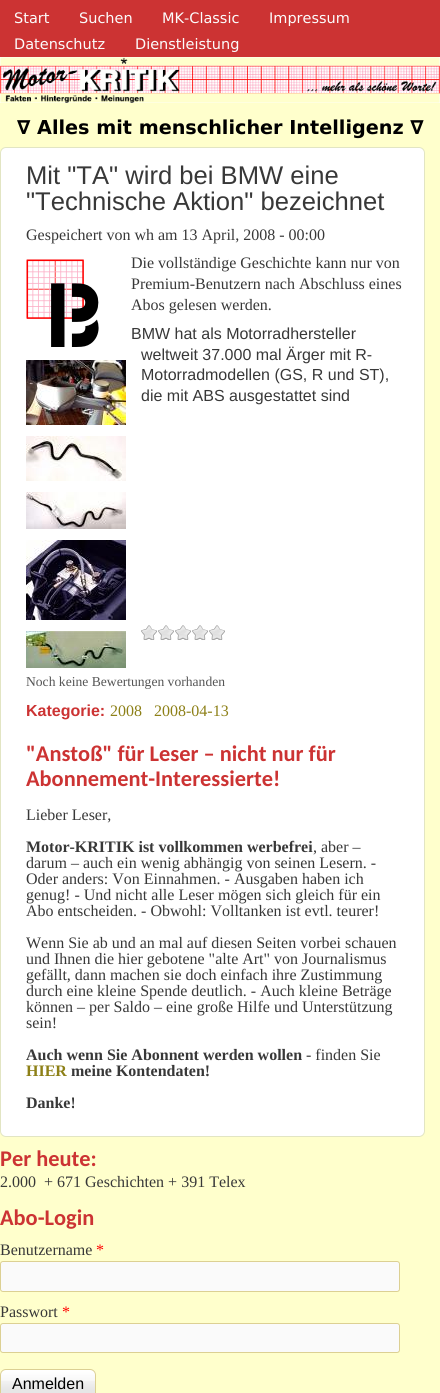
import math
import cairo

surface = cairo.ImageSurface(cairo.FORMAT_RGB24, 440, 1393)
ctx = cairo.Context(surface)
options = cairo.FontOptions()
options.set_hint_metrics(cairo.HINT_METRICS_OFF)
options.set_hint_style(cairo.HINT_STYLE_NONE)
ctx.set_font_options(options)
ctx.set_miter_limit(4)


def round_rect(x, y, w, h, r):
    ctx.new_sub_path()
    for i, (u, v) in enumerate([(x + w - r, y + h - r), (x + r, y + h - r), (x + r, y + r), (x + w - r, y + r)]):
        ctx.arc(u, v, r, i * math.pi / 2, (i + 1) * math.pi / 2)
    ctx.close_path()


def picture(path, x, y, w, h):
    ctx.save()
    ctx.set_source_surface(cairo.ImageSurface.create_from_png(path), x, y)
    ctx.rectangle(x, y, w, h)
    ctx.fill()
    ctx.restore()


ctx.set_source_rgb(1, 1, 0.8)
ctx.paint()
ctx.set_source_rgb(0.8, 0.2, 0.2)
ctx.rectangle(0, 0, 440, 57)
ctx.fill()
ctx.select_font_face("DejaVu Sans")
ctx.set_font_size(14.5)
ctx.set_source_rgb(0.988, 0.988, 0.988)
ctx.move_to(14, 23)
ctx.show_text("Start")
ctx.move_to(79, 23)
ctx.show_text("Suchen")
ctx.move_to(162, 23)
ctx.show_text("MK-Classic")
ctx.move_to(269, 23)
ctx.show_text("Impressum")
ctx.move_to(14, 49)
ctx.show_text("Datenschutz")
ctx.move_to(135, 49)
ctx.show_text("Dienstleistung")
picture("img1.png", 0, 57, 440, 46)
ctx.select_font_face("DejaVu Sans", cairo.FONT_SLANT_NORMAL, cairo.FONT_WEIGHT_BOLD)
ctx.set_font_size(19.2)
ctx.set_source_rgb(0, 0, 0)
ctx.move_to(17, 134)
ctx.show_text("∇ Alles mit menschlicher Intelligenz ∇")
ctx.set_source_rgb(1, 1, 1)
round_rect(0.5, 147.5, 424, 989, 5.5)
ctx.fill_preserve()
ctx.set_source_rgb(0.886, 0.898, 0.765)
ctx.set_line_width(1)
ctx.stroke()
ctx.select_font_face("Liberation Sans")
ctx.set_font_size(25.6)
ctx.set_source_rgb(0.22, 0.22, 0.22)
ctx.move_to(26, 184)
ctx.show_text("Mit \"TA\" wird bei BMW eine")
ctx.move_to(26, 210)
ctx.show_text("\"Technische Aktion\" bezeichnet")
ctx.select_font_face("Liberation Serif")
ctx.set_font_size(16)
ctx.move_to(26, 240)
ctx.show_text("Gespeichert von wh am 13 April, 2008 - 00:00")
picture("img2.png", 26, 259, 73, 88)
picture("img3.png", 26, 360, 100, 65)
picture("img4.png", 26, 436, 100, 45)
picture("img5.png", 26, 492, 100, 37)
picture("img6.png", 26, 540, 100, 80)
picture("img7.png", 26, 631, 100, 37)
ctx.move_to(131, 268)
ctx.show_text("Die vollständige Geschichte kann nur von")
ctx.move_to(131, 289)
ctx.show_text("Premium-Benutzern nach Abschluss eines")
ctx.move_to(131, 310)
ctx.show_text("Abos gelesen werden.")
ctx.select_font_face("Liberation Sans")
ctx.move_to(131, 339)
ctx.show_text("BMW hat als Motorradhersteller")
ctx.move_to(141, 360)
ctx.show_text("weltweit 37.000 mal Ärger mit R-")
ctx.move_to(141, 380)
ctx.show_text("Motorradmodellen (GS, R und ST),")
ctx.move_to(141, 401)
ctx.show_text("die mit ABS ausgestattet sind")
picture("img8.png", 141, 625, 16, 15)
picture("img9.png", 141, 625, 16, 15)
picture("img8.png", 158, 625, 16, 15)
picture("img9.png", 158, 625, 16, 15)
picture("img8.png", 175, 625, 16, 15)
picture("img9.png", 175, 625, 16, 15)
picture("img8.png", 192, 625, 16, 15)
picture("img9.png", 192, 625, 16, 15)
picture("img8.png", 209, 625, 16, 15)
picture("img9.png", 209, 625, 16, 15)
ctx.select_font_face("Liberation Serif")
ctx.set_font_size(13.6)
ctx.set_source_rgb(0.333, 0.333, 0.333)
ctx.move_to(26, 686)
ctx.show_text("Noch keine Bewertungen vorhanden")
ctx.select_font_face("Liberation Sans", cairo.FONT_SLANT_NORMAL, cairo.FONT_WEIGHT_BOLD)
ctx.set_font_size(16)
ctx.set_source_rgb(0.8, 0.2, 0.2)
ctx.move_to(26, 716)
ctx.show_text("Kategorie:")
ctx.select_font_face("Liberation Serif")
ctx.set_source_rgb(0.553, 0.502, 0.09)
ctx.move_to(110, 716)
ctx.show_text("2008")
ctx.move_to(154, 716)
ctx.show_text("2008-04-13")
ctx.select_font_face("Carlito", cairo.FONT_SLANT_NORMAL, cairo.FONT_WEIGHT_BOLD)
ctx.set_font_size(22.4)
ctx.set_source_rgb(0.8, 0.2, 0.2)
ctx.move_to(26, 761)
ctx.show_text("\"Anstoß\" für Leser – nicht nur für")
ctx.move_to(26, 786)
ctx.show_text("Abonnement-Interessierte!")
ctx.select_font_face("Liberation Serif")
ctx.set_font_size(16)
ctx.set_source_rgb(0.22, 0.22, 0.22)
ctx.move_to(26, 820)
ctx.show_text("Lieber Leser,")
ctx.select_font_face("Liberation Serif", cairo.FONT_SLANT_NORMAL, cairo.FONT_WEIGHT_BOLD)
ctx.move_to(26, 852)
ctx.show_text("Motor-KRITIK ist vollkommen werbefrei")
ctx.select_font_face("Liberation Serif")
ctx.move_to(313, 852)
ctx.show_text(", aber –")
ctx.move_to(26, 868)
ctx.show_text("darum – auch ein wenig abhängig von seinen Lesern. -")
ctx.move_to(26, 884)
ctx.show_text("Oder anders: Von Einnahmen. - Ausgaben haben ich")
ctx.move_to(26, 900)
ctx.show_text("genug! - Und nicht alle Leser mögen sich gleich für ein")
ctx.move_to(26, 916)
ctx.show_text("Abo entscheiden. - Obwohl: Volltanken ist evtl. teurer!")
ctx.move_to(26, 948)
ctx.show_text("Wenn Sie ab und an mal auf diesen Seiten vorbei schauen")
ctx.move_to(26, 964)
ctx.show_text("und Ihnen die hier gebotene \"alte Art\" von Journalismus")
ctx.move_to(26, 980)
ctx.show_text("gefällt, dann machen sie doch einfach ihre Zustimmung")
ctx.move_to(26, 996)
ctx.show_text("durch eine kleine Spende deutlich. - Auch kleine Beträge")
ctx.move_to(26, 1012)
ctx.show_text("können – per Saldo – eine große Hilfe und Unterstützung")
ctx.move_to(26, 1028)
ctx.show_text("sein!")
ctx.select_font_face("Liberation Serif", cairo.FONT_SLANT_NORMAL, cairo.FONT_WEIGHT_BOLD)
ctx.move_to(26, 1060)
ctx.show_text("Auch wenn Sie Abonnent werden wollen")
ctx.select_font_face("Liberation Serif")
ctx.move_to(306, 1060)
ctx.show_text("- finden Sie")
ctx.select_font_face("Liberation Serif", cairo.FONT_SLANT_NORMAL, cairo.FONT_WEIGHT_BOLD)
ctx.set_source_rgb(0.553, 0.502, 0.09)
ctx.move_to(26, 1076)
ctx.show_text("HIER")
ctx.set_source_rgb(0.22, 0.22, 0.22)
ctx.move_to(71, 1076)
ctx.show_text("meine Kontendaten!")
ctx.move_to(26, 1108)
ctx.show_text("Danke!")
ctx.select_font_face("Carlito", cairo.FONT_SLANT_NORMAL, cairo.FONT_WEIGHT_BOLD)
ctx.set_font_size(22.4)
ctx.set_source_rgb(0.8, 0.2, 0.2)
ctx.move_to(0, 1166)
ctx.show_text("Per heute:")
ctx.select_font_face("Liberation Serif")
ctx.set_font_size(16)
ctx.set_source_rgb(0.22, 0.22, 0.22)
ctx.move_to(0, 1187)
ctx.show_text("2.000  + 671 Geschichten + 391 Telex")
ctx.select_font_face("Carlito", cairo.FONT_SLANT_NORMAL, cairo.FONT_WEIGHT_BOLD)
ctx.set_font_size(22.4)
ctx.set_source_rgb(0.8, 0.2, 0.2)
ctx.move_to(0, 1225)
ctx.show_text("Abo-Login")
ctx.select_font_face("Liberation Serif")
ctx.set_font_size(16)
ctx.set_source_rgb(0.22, 0.22, 0.22)
ctx.move_to(0, 1255)
ctx.show_text("Benutzername")
ctx.set_source_rgb(1, 0, 0)
ctx.move_to(96, 1255)
ctx.show_text("*")
ctx.set_source_rgb(0.98, 0.98, 0.98)
round_rect(0.5, 1261.5, 399, 30, 2.5)
ctx.fill_preserve()
ctx.set_source_rgb(0.863, 0.816, 0.576)
ctx.stroke()
ctx.set_source_rgb(0.22, 0.22, 0.22)
ctx.move_to(0, 1317)
ctx.show_text("Passwort")
ctx.set_source_rgb(1, 0, 0)
ctx.move_to(62, 1317)
ctx.show_text("*")
ctx.set_source_rgb(0.98, 0.98, 0.98)
round_rect(0.5, 1323.5, 399, 29, 2.5)
ctx.fill_preserve()
ctx.set_source_rgb(0.863, 0.816, 0.576)
ctx.stroke()
picture("img10.png", 0, 1370, 96, 23)
round_rect(0.5, 1369.5, 95, 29, 5.5)
ctx.stroke()
ctx.select_font_face("Liberation Sans")
ctx.set_source_rgb(0, 0, 0)
ctx.move_to(12, 1389)
ctx.show_text("Anmelden")
surface.write_to_png("page.png")
